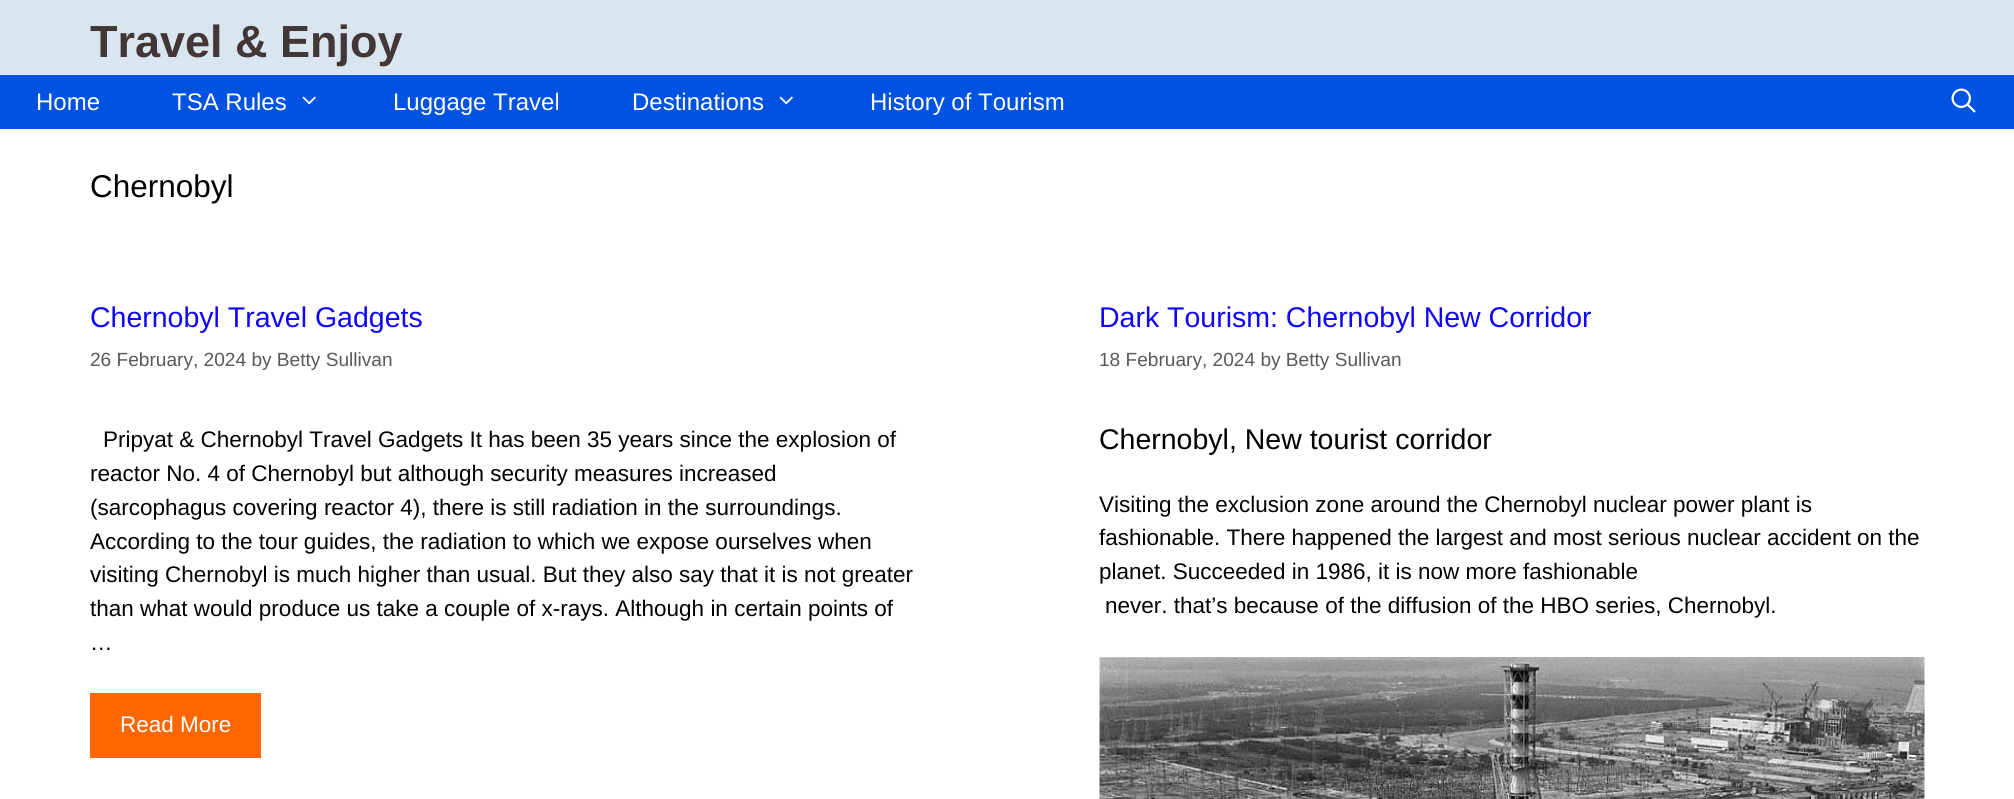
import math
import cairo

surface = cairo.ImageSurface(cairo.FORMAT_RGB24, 2014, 799)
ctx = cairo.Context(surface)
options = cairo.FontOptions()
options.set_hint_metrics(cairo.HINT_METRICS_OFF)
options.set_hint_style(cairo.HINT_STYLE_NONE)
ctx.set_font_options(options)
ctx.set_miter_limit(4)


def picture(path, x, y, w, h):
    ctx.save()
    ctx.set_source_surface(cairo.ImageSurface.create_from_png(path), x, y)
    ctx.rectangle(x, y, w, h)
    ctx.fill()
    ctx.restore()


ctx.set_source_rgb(1, 1, 1)
ctx.paint()
ctx.set_source_rgb(0.855, 0.902, 0.937)
ctx.rectangle(0, 0, 2014, 75)
ctx.fill()
ctx.select_font_face("Liberation Sans", cairo.FONT_SLANT_NORMAL, cairo.FONT_WEIGHT_BOLD)
ctx.set_font_size(45)
ctx.set_source_rgb(0.259, 0.212, 0.216)
ctx.move_to(90, 57)
ctx.show_text("Travel & Enjoy")
ctx.set_source_rgb(0, 0.322, 0.878)
ctx.rectangle(0, 75, 2014, 54)
ctx.fill()
ctx.select_font_face("Liberation Sans")
ctx.set_font_size(24)
ctx.set_source_rgb(1, 1, 1)
ctx.move_to(36, 110)
ctx.show_text("Home")
ctx.move_to(172, 110)
ctx.show_text("TSA Rules")
picture("img1.png", 302, 96, 14, 9)
ctx.move_to(393, 110)
ctx.show_text("Luggage Travel")
ctx.move_to(632, 110)
ctx.show_text("Destinations")
picture("img1.png", 779, 96, 14, 9)
ctx.move_to(870, 110)
ctx.show_text("History of Tourism")
picture("img2.png", 1951, 88, 25, 25)
ctx.set_font_size(31.5)
ctx.set_source_rgb(0.008, 0, 0)
ctx.move_to(90, 197)
ctx.show_text("Chernobyl")
ctx.set_font_size(28.5)
ctx.set_source_rgb(0.059, 0.027, 0.969)
ctx.move_to(90, 327)
ctx.show_text("Chernobyl Travel Gadgets")
ctx.set_font_size(19.1)
ctx.set_source_rgb(0.349, 0.349, 0.349)
ctx.move_to(90, 366)
ctx.show_text("26 February, 2024 by Betty Sullivan")
ctx.set_font_size(22.5)
ctx.set_source_rgb(0.008, 0, 0)
ctx.move_to(103, 447)
ctx.show_text("Pripyat & Chernobyl Travel Gadgets It has been 35 years since the explosion of")
ctx.move_to(90, 481)
ctx.show_text("reactor No. 4 of Chernobyl but although security measures increased")
ctx.move_to(90, 515)
ctx.show_text("(sarcophagus covering reactor 4), there is still radiation in the surroundings.")
ctx.move_to(90, 549)
ctx.show_text("According to the tour guides, the radiation to which we expose ourselves when")
ctx.move_to(90, 582)
ctx.show_text("visiting Chernobyl is much higher than usual. But they also say that it is not greater")
ctx.move_to(90, 616)
ctx.show_text("than what would produce us take a couple of x-rays. Although in certain points of")
ctx.move_to(90, 650)
ctx.show_text("…")
ctx.set_source_rgb(1, 0.4, 0)
ctx.rectangle(90, 693, 171, 65)
ctx.fill()
ctx.set_source_rgb(1, 1, 1)
ctx.move_to(120, 732)
ctx.show_text("Read More")
ctx.set_font_size(28.5)
ctx.set_source_rgb(0.059, 0.027, 0.969)
ctx.move_to(1099, 327)
ctx.show_text("Dark Tourism: Chernobyl New Corridor")
ctx.set_font_size(19.1)
ctx.set_source_rgb(0.349, 0.349, 0.349)
ctx.move_to(1099, 366)
ctx.show_text("18 February, 2024 by Betty Sullivan")
ctx.set_font_size(28.5)
ctx.set_source_rgb(0.008, 0, 0)
ctx.move_to(1099, 449)
ctx.show_text("Chernobyl, New tourist corridor")
ctx.set_font_size(22.5)
ctx.move_to(1099, 512)
ctx.show_text("Visiting the exclusion zone around the Chernobyl nuclear power plant is")
ctx.move_to(1099, 545)
ctx.show_text("fashionable. There happened the largest and most serious nuclear accident on the")
ctx.move_to(1099, 579)
ctx.show_text("planet. Succeeded in 1986, it is now more fashionable")
ctx.move_to(1105, 613)
ctx.show_text("never. that’s because of the diffusion of the HBO series, Chernobyl.")
picture("img3.png", 1099, 657, 826, 142)
surface.write_to_png("page.png")
